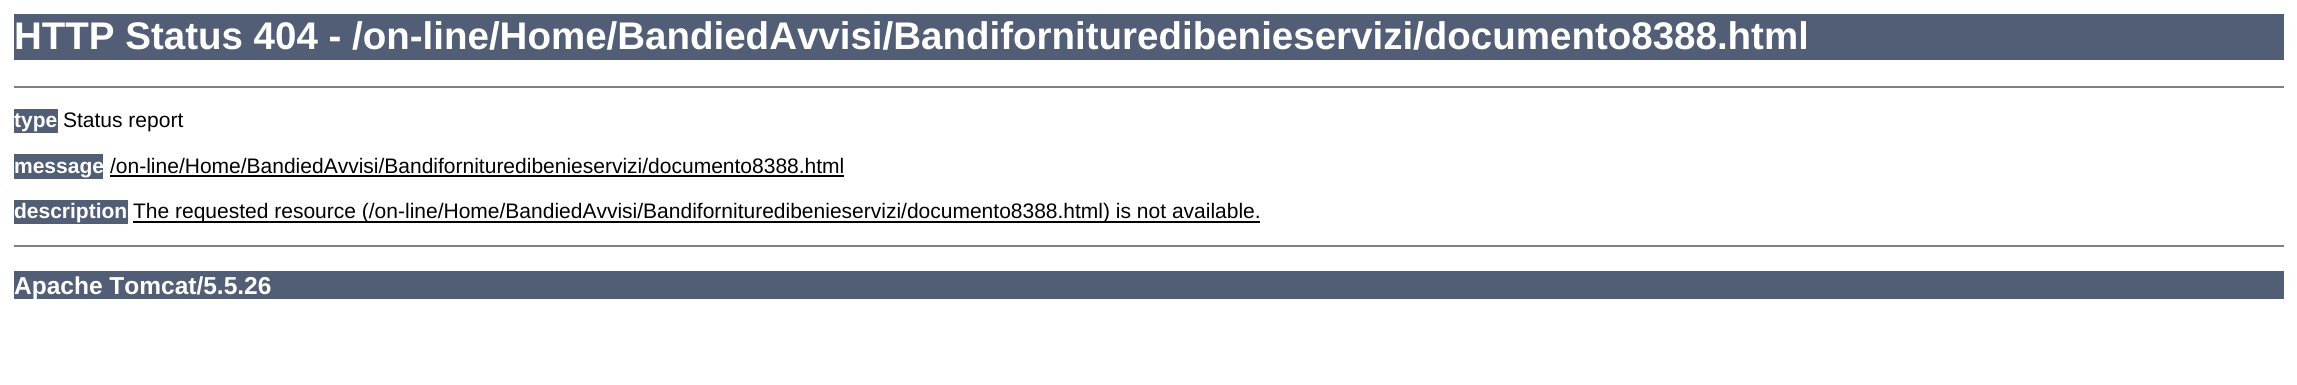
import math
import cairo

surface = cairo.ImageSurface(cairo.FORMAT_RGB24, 2297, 385)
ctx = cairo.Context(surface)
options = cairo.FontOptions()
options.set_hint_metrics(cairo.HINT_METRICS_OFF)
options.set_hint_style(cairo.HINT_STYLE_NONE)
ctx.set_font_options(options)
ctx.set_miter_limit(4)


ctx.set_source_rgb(1, 1, 1)
ctx.paint()
ctx.set_source_rgb(0.322, 0.365, 0.463)
ctx.rectangle(14, 14, 2270, 46)
ctx.fill()
ctx.select_font_face("Liberation Sans", cairo.FONT_SLANT_NORMAL, cairo.FONT_WEIGHT_BOLD)
ctx.set_font_size(38.5)
ctx.set_source_rgb(1, 1, 1)
ctx.move_to(14, 49)
ctx.show_text("HTTP Status 404 - /on-line/Home/BandiedAvvisi/Bandifornituredibenieservizi/documento8388.html")
ctx.set_source_rgb(0.502, 0.502, 0.502)
ctx.rectangle(14, 86, 2270, 2)
ctx.fill()
ctx.set_source_rgb(0.322, 0.365, 0.463)
ctx.rectangle(14, 109, 44, 24)
ctx.fill()
ctx.set_font_size(21)
ctx.set_source_rgb(1, 1, 1)
ctx.move_to(14, 127)
ctx.show_text("type")
ctx.select_font_face("Liberation Sans")
ctx.set_source_rgb(0, 0, 0)
ctx.move_to(63, 127)
ctx.show_text("Status report")
ctx.set_source_rgb(0.322, 0.365, 0.463)
ctx.rectangle(14, 154, 89, 25)
ctx.fill()
ctx.select_font_face("Liberation Sans", cairo.FONT_SLANT_NORMAL, cairo.FONT_WEIGHT_BOLD)
ctx.set_source_rgb(1, 1, 1)
ctx.move_to(14, 173)
ctx.show_text("message")
ctx.select_font_face("Liberation Sans")
ctx.set_source_rgb(0, 0, 0)
ctx.move_to(110, 173)
ctx.show_text("/on-line/Home/BandiedAvvisi/Bandifornituredibenieservizi/documento8388.html")
ctx.rectangle(110, 175, 734, 2)
ctx.fill()
ctx.set_source_rgb(0.322, 0.365, 0.463)
ctx.rectangle(14, 200, 114, 24)
ctx.fill()
ctx.select_font_face("Liberation Sans", cairo.FONT_SLANT_NORMAL, cairo.FONT_WEIGHT_BOLD)
ctx.set_source_rgb(1, 1, 1)
ctx.move_to(14, 218)
ctx.show_text("description")
ctx.set_source_rgb(0, 0, 0)
ctx.rectangle(133, 221, 1127, 2)
ctx.fill()
ctx.select_font_face("Liberation Sans")
ctx.move_to(133, 218)
ctx.show_text("The requested resource (/on-line/Home/BandiedAvvisi/Bandifornituredibenieservizi/documento8388.html) is not available.")
ctx.set_source_rgb(0.502, 0.502, 0.502)
ctx.rectangle(14, 245, 2270, 2)
ctx.fill()
ctx.set_source_rgb(0.322, 0.365, 0.463)
ctx.rectangle(14, 271, 2270, 28)
ctx.fill()
ctx.select_font_face("Liberation Sans", cairo.FONT_SLANT_NORMAL, cairo.FONT_WEIGHT_BOLD)
ctx.set_font_size(24.5)
ctx.set_source_rgb(1, 1, 1)
ctx.move_to(14, 294)
ctx.show_text("Apache Tomcat/5.5.26")
surface.write_to_png("page.png")
